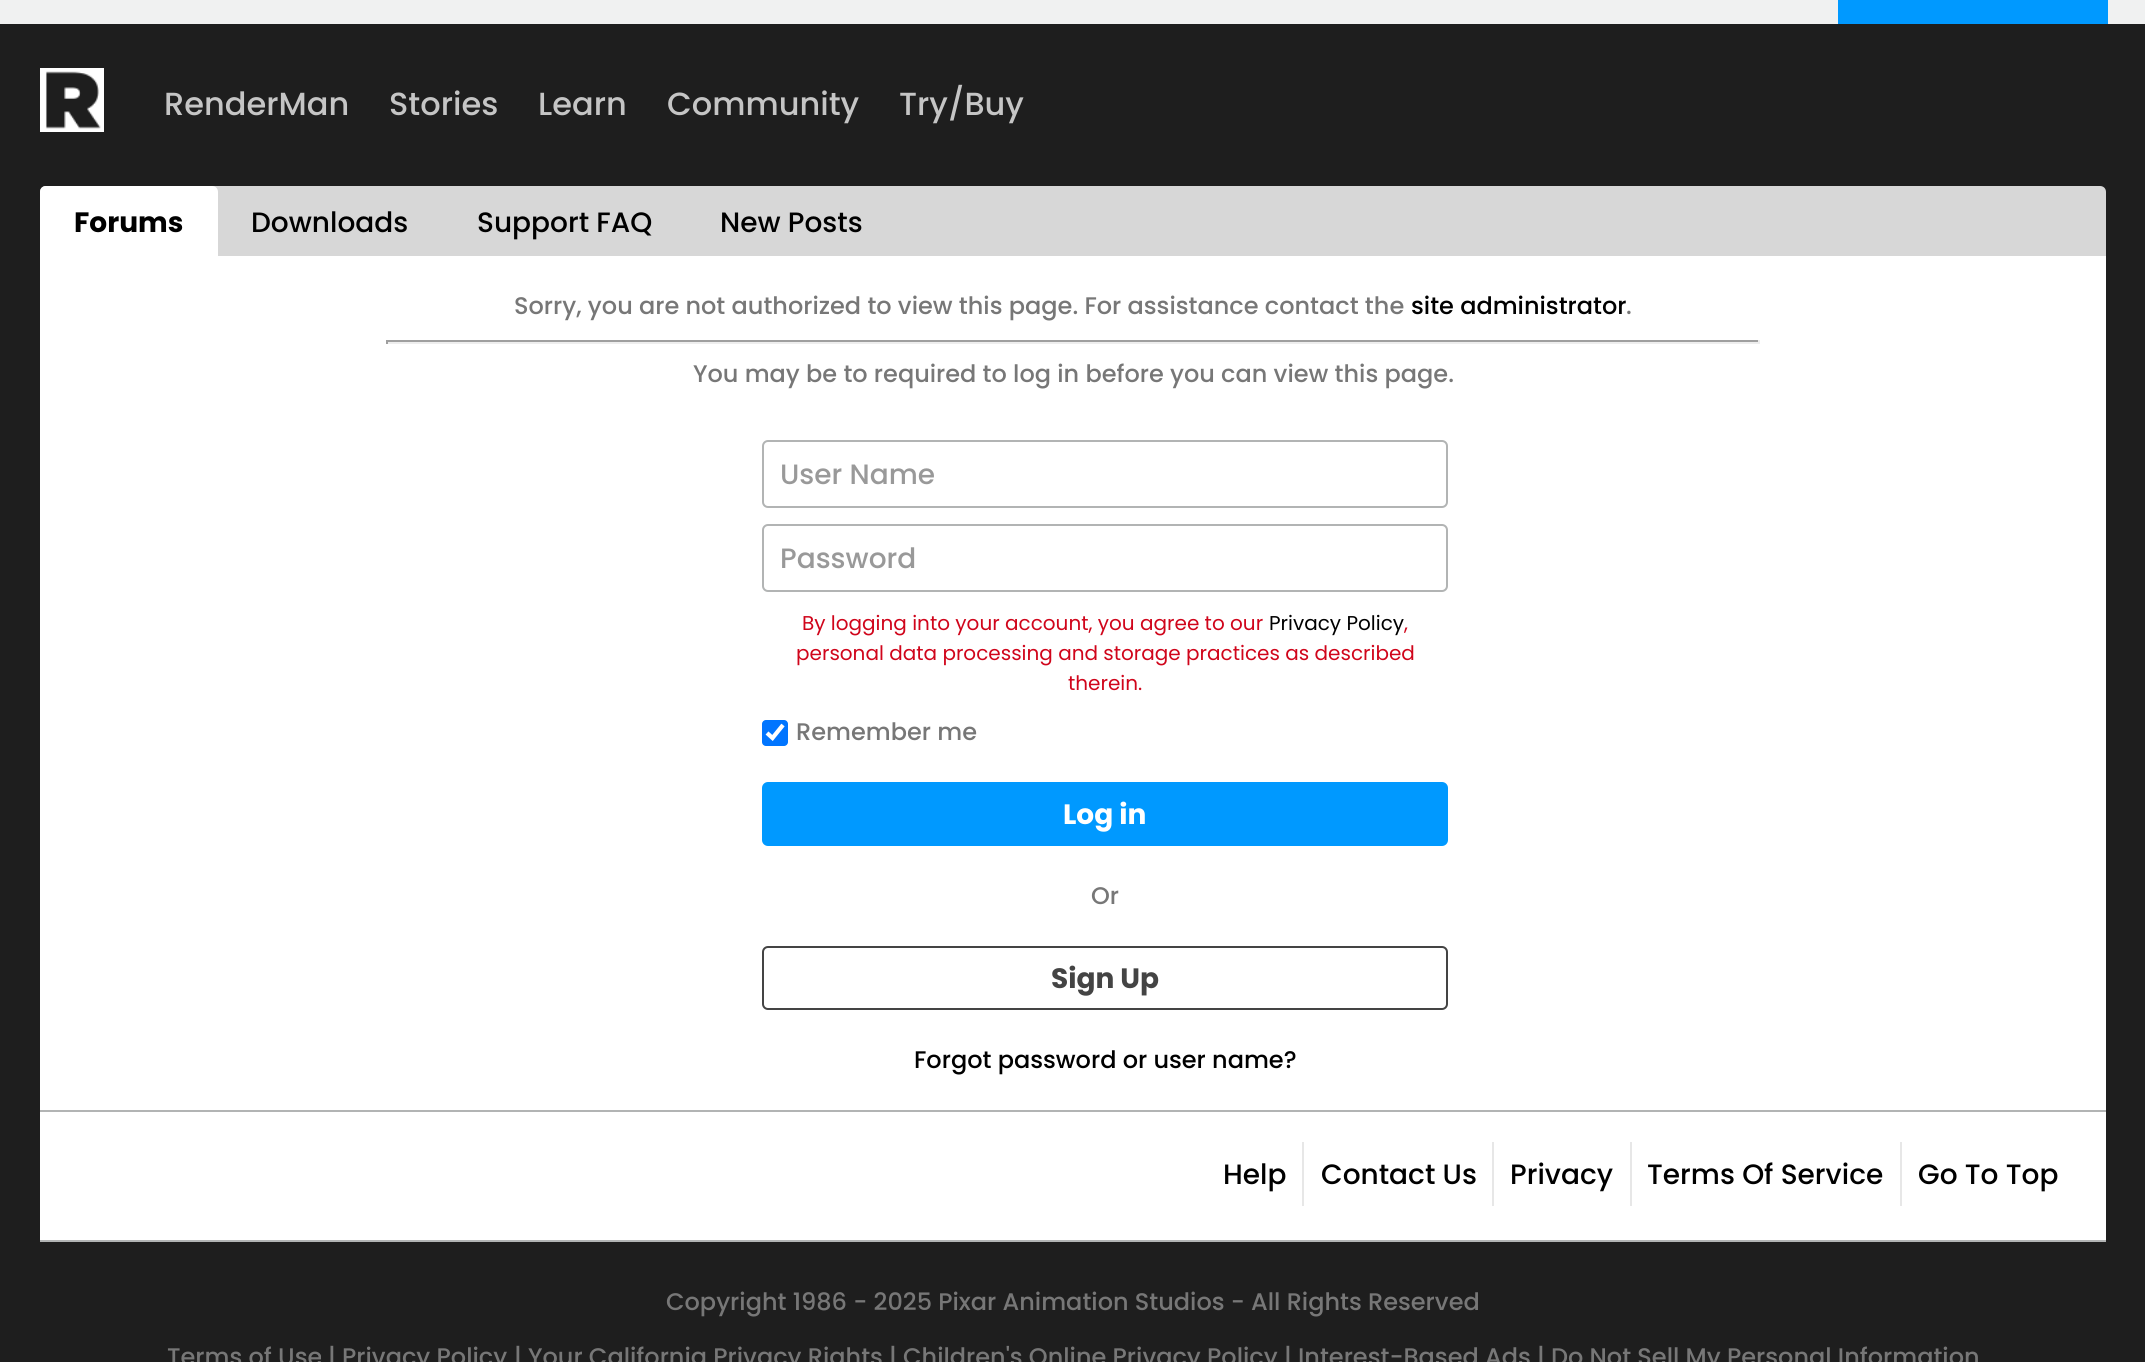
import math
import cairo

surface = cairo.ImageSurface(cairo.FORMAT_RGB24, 2145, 1362)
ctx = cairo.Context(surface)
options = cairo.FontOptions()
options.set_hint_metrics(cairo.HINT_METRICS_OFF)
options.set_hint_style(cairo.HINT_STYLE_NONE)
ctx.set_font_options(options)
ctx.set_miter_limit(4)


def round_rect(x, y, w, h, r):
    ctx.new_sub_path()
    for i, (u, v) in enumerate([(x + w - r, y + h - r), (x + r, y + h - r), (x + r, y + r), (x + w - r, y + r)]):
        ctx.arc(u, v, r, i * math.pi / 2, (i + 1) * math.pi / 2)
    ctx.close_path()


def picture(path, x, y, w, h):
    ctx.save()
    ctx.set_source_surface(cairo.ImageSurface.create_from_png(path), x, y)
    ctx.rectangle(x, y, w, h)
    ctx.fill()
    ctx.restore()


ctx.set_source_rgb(0.118, 0.118, 0.118)
ctx.paint()
ctx.set_source_rgb(0.941, 0.945, 0.945)
ctx.rectangle(0, 0, 2145, 24)
ctx.fill()
ctx.set_source_rgb(0, 0.6, 1)
ctx.rectangle(1838, 0, 270, 24)
ctx.fill()
picture("img1.png", 40, 68, 64, 64)
ctx.select_font_face("Poppins Medium")
ctx.set_font_size(32)
ctx.set_source_rgb(0.773, 0.773, 0.773)
ctx.move_to(164, 115)
ctx.show_text("RenderMan")
ctx.move_to(389, 115)
ctx.show_text("Stories")
ctx.move_to(538, 115)
ctx.show_text("Learn")
ctx.move_to(667, 115)
ctx.show_text("Community")
ctx.move_to(899, 115)
ctx.show_text("Try/Buy")
ctx.set_source_rgb(0.843, 0.843, 0.843)
ctx.new_path()
ctx.move_to(46, 186)
ctx.line_to(2100, 186)
ctx.curve_to(2103.5, 186, 2106, 188.5, 2106, 192)
ctx.line_to(2106, 256)
ctx.line_to(40, 256)
ctx.line_to(40, 192)
ctx.curve_to(40, 188.5, 42.5, 186, 46, 186)
ctx.close_path()
ctx.fill()
ctx.set_source_rgb(1, 1, 1)
ctx.new_path()
ctx.move_to(46, 186)
ctx.line_to(212, 186)
ctx.curve_to(215.5, 186, 218, 188.5, 218, 192)
ctx.line_to(218, 256)
ctx.line_to(40, 256)
ctx.line_to(40, 192)
ctx.curve_to(40, 188.5, 42.5, 186, 46, 186)
ctx.close_path()
ctx.fill()
ctx.select_font_face("Poppins", cairo.FONT_SLANT_NORMAL, cairo.FONT_WEIGHT_BOLD)
ctx.set_font_size(28)
ctx.set_source_rgb(0, 0, 0)
ctx.move_to(74, 232)
ctx.show_text("Forums")
ctx.select_font_face("Poppins Medium")
ctx.move_to(251, 232)
ctx.show_text("Downloads")
ctx.move_to(477, 232)
ctx.show_text("Support FAQ")
ctx.move_to(720, 232)
ctx.show_text("New Posts")
ctx.set_source_rgb(1, 1, 1)
ctx.rectangle(40, 256, 2066, 854)
ctx.fill()
ctx.set_font_size(24)
ctx.set_source_rgb(0.467, 0.467, 0.467)
ctx.move_to(514, 314)
ctx.show_text("Sorry, you are not authorized to view this page. For assistance contact the")
ctx.set_source_rgb(0, 0, 0)
ctx.move_to(1411, 314)
ctx.show_text("site administrator")
ctx.set_source_rgb(0.467, 0.467, 0.467)
ctx.move_to(1626, 314)
ctx.show_text(".")
ctx.set_source_rgb(0.624, 0.624, 0.624)
ctx.rectangle(386, 340, 1374, 2)
ctx.fill()
ctx.set_source_rgb(0.933, 0.933, 0.933)
ctx.rectangle(1758, 340, 2, 4)
ctx.fill()
ctx.rectangle(386, 342, 1374, 2)
ctx.fill()
ctx.set_source_rgb(0.624, 0.624, 0.624)
ctx.rectangle(386, 340, 2, 4)
ctx.fill()
ctx.set_source_rgb(0.467, 0.467, 0.467)
ctx.move_to(693, 382)
ctx.show_text("You may be to required to log in before you can view this page.")
round_rect(763, 441, 684, 66, 5)
ctx.set_source_rgb(0.698, 0.706, 0.706)
ctx.stroke()
ctx.set_font_size(28)
ctx.set_source_rgb(0.6, 0.6, 0.6)
ctx.move_to(780, 484)
ctx.show_text("User Name")
round_rect(763, 525, 684, 66, 5)
ctx.set_source_rgb(0.698, 0.706, 0.706)
ctx.stroke()
ctx.set_source_rgb(0.6, 0.6, 0.6)
ctx.move_to(780, 568)
ctx.show_text("Password")
ctx.select_font_face("Poppins")
ctx.set_font_size(20)
ctx.set_source_rgb(0.816, 0.02, 0.106)
ctx.move_to(802, 630)
ctx.show_text("By logging into your account, you agree to our")
ctx.set_source_rgb(0, 0, 0)
ctx.move_to(1269, 630)
ctx.show_text("Privacy Policy")
ctx.set_source_rgb(0.816, 0.02, 0.106)
ctx.move_to(1404, 630)
ctx.show_text(",")
ctx.move_to(796, 660)
ctx.show_text("personal data processing and storage practices as described")
ctx.move_to(1068, 690)
ctx.show_text("therein.")
ctx.set_source_rgb(0, 0.459, 1)
round_rect(762, 720, 26, 26, 4)
ctx.fill()
ctx.new_path()
ctx.move_to(767, 733)
ctx.line_to(772.5, 738)
ctx.line_to(783, 725)
ctx.set_source_rgb(1, 1, 1)
ctx.set_line_width(4.2)
ctx.stroke()
ctx.select_font_face("Poppins Medium")
ctx.set_font_size(24)
ctx.set_source_rgb(0.467, 0.467, 0.467)
ctx.move_to(796, 740)
ctx.show_text("Remember me")
ctx.set_source_rgb(0, 0.6, 1)
round_rect(763, 783, 684, 62, 5)
ctx.fill_preserve()
ctx.set_line_width(2)
ctx.stroke()
ctx.select_font_face("Poppins", cairo.FONT_SLANT_NORMAL, cairo.FONT_WEIGHT_BOLD)
ctx.set_font_size(28)
ctx.set_source_rgb(1, 1, 1)
ctx.move_to(1063, 824)
ctx.show_text("Log in")
ctx.select_font_face("Poppins Medium")
ctx.set_font_size(24)
ctx.set_source_rgb(0.467, 0.467, 0.467)
ctx.move_to(1091, 904)
ctx.show_text("Or")
round_rect(763, 947, 684, 62, 5)
ctx.set_source_rgb(0.267, 0.267, 0.267)
ctx.stroke()
ctx.select_font_face("Poppins", cairo.FONT_SLANT_NORMAL, cairo.FONT_WEIGHT_BOLD)
ctx.set_font_size(28)
ctx.move_to(1051, 988)
ctx.show_text("Sign Up")
ctx.select_font_face("Poppins Medium")
ctx.set_font_size(24)
ctx.set_source_rgb(0, 0, 0)
ctx.move_to(914, 1068)
ctx.show_text("Forgot password or user name?")
ctx.set_source_rgb(1, 1, 1)
ctx.rectangle(40, 1112, 2066, 128)
ctx.fill()
ctx.set_source_rgb(0.698, 0.706, 0.706)
ctx.rectangle(40, 1110, 2066, 2)
ctx.fill()
ctx.rectangle(40, 1240, 2066, 2)
ctx.fill()
ctx.set_font_size(28)
ctx.set_source_rgb(0, 0, 0)
ctx.move_to(1223, 1184)
ctx.show_text("Help")
ctx.set_source_rgb(0.906, 0.906, 0.906)
ctx.rectangle(1302, 1142, 2, 64)
ctx.fill()
ctx.set_source_rgb(0, 0, 0)
ctx.move_to(1321, 1184)
ctx.show_text("Contact Us")
ctx.set_source_rgb(0.906, 0.906, 0.906)
ctx.rectangle(1492, 1142, 2, 64)
ctx.fill()
ctx.set_source_rgb(0, 0, 0)
ctx.move_to(1510, 1184)
ctx.show_text("Privacy")
ctx.set_source_rgb(0.906, 0.906, 0.906)
ctx.rectangle(1630, 1142, 2, 64)
ctx.fill()
ctx.set_source_rgb(0, 0, 0)
ctx.move_to(1647, 1184)
ctx.show_text("Terms Of Service")
ctx.set_source_rgb(0.906, 0.906, 0.906)
ctx.rectangle(1900, 1142, 2, 64)
ctx.fill()
ctx.set_source_rgb(0, 0, 0)
ctx.move_to(1918, 1184)
ctx.show_text("Go To Top")
ctx.set_font_size(24)
ctx.set_source_rgb(0.467, 0.467, 0.467)
ctx.move_to(666, 1310)
ctx.show_text("Copyright 1986 - 2025 Pixar Animation Studios - All Rights Reserved")
ctx.move_to(167, 1365)
ctx.show_text("Terms of Use")
ctx.move_to(328, 1365)
ctx.show_text("|")
ctx.move_to(342, 1365)
ctx.show_text("Privacy Policy")
ctx.move_to(514, 1365)
ctx.show_text("|")
ctx.move_to(528, 1365)
ctx.show_text("Your California Privacy Rights")
ctx.move_to(889, 1365)
ctx.show_text("|")
ctx.move_to(903, 1365)
ctx.show_text("Children's Online Privacy Policy")
ctx.move_to(1284, 1365)
ctx.show_text("|")
ctx.move_to(1298, 1365)
ctx.show_text("Interest-Based Ads")
ctx.move_to(1537, 1365)
ctx.show_text("|")
ctx.move_to(1551, 1365)
ctx.show_text("Do Not Sell My Personal Information")
surface.write_to_png("page.png")
